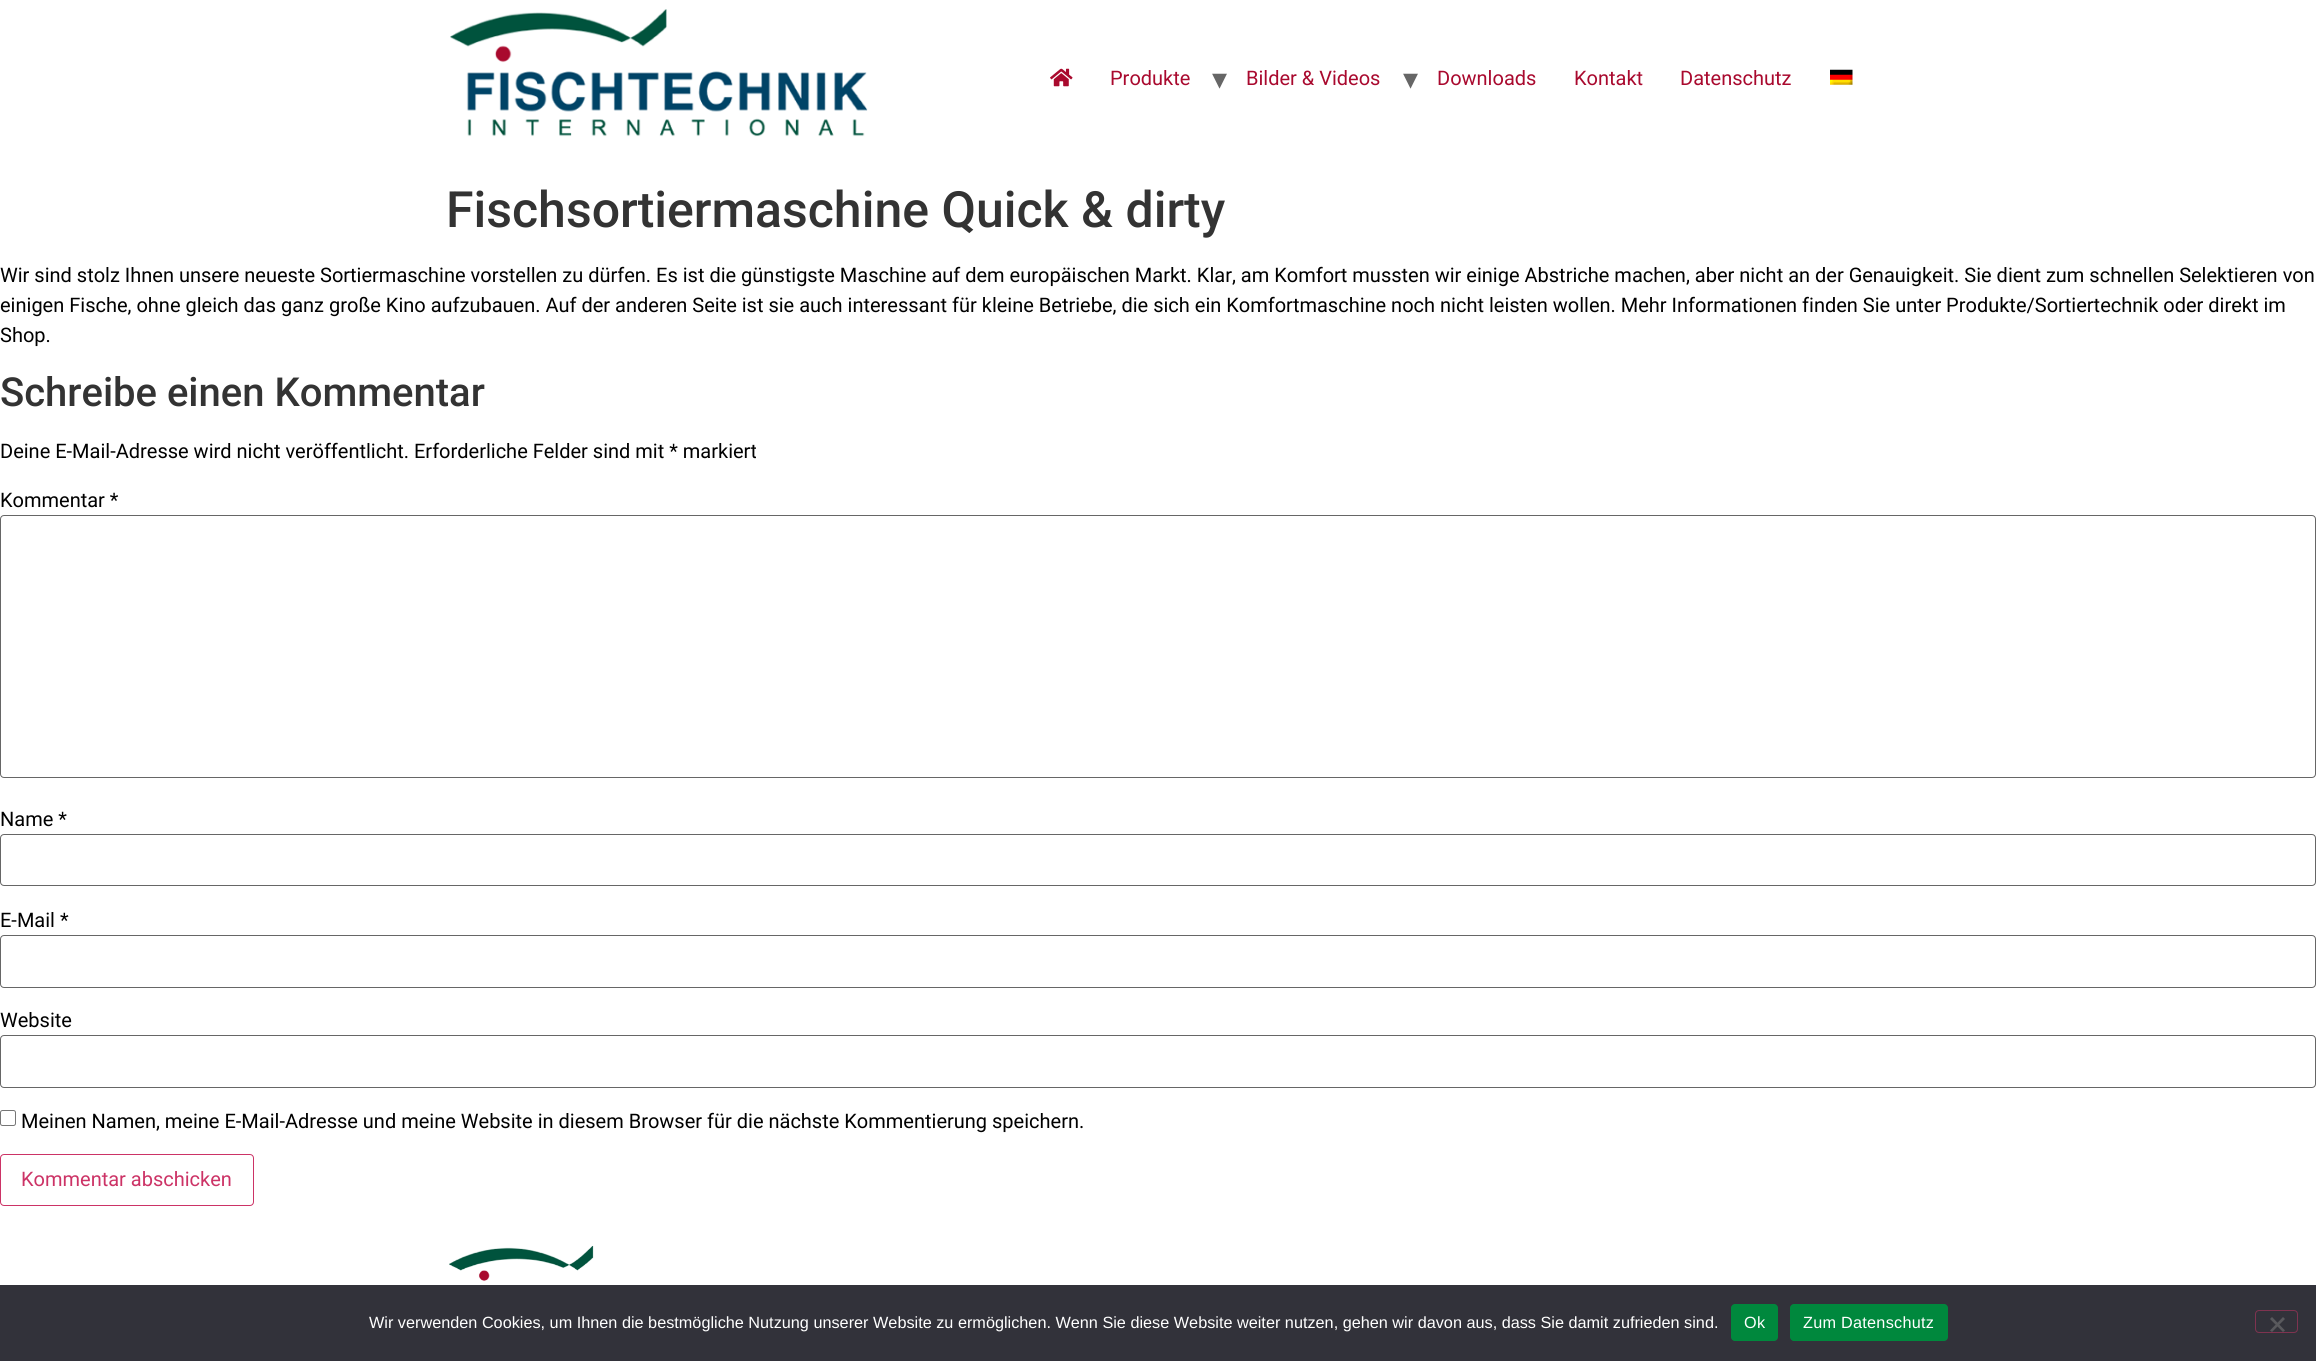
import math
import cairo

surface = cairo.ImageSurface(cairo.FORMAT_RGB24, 2316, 1361)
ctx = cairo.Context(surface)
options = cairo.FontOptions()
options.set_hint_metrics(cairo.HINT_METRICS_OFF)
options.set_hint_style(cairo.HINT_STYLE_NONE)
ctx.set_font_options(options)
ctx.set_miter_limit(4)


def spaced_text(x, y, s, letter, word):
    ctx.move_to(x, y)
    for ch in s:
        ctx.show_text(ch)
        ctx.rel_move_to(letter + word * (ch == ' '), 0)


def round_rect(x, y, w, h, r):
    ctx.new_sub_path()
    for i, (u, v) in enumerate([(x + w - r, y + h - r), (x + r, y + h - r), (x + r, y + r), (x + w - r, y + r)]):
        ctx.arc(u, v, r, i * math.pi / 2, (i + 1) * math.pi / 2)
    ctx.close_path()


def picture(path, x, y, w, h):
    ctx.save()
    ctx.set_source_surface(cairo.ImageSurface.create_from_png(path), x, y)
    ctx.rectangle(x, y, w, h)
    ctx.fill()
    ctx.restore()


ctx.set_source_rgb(1, 1, 1)
ctx.paint()
picture("img1.png", 450, 9, 418, 128)
picture("img2.png", 1050, 68, 23, 19)
ctx.select_font_face("Roboto")
ctx.set_font_size(20)
ctx.set_source_rgb(0.663, 0.039, 0.18)
ctx.move_to(1110, 85)
ctx.show_text("Produkte")
ctx.select_font_face("DejaVu Sans")
ctx.set_font_size(30)
ctx.set_source_rgb(0.4, 0.4, 0.4)
ctx.move_to(1212, 89)
ctx.show_text("▾")
ctx.select_font_face("Roboto")
ctx.set_font_size(20)
ctx.set_source_rgb(0.663, 0.039, 0.18)
ctx.move_to(1246, 85)
ctx.show_text("Bilder & Videos")
ctx.select_font_face("DejaVu Sans")
ctx.set_font_size(30)
ctx.set_source_rgb(0.4, 0.4, 0.4)
ctx.move_to(1403, 89)
ctx.show_text("▾")
ctx.select_font_face("Roboto")
ctx.set_font_size(20)
ctx.set_source_rgb(0.663, 0.039, 0.18)
ctx.move_to(1437, 85)
ctx.show_text("Downloads")
ctx.move_to(1574, 85)
ctx.show_text("Kontakt")
ctx.move_to(1680, 85)
ctx.show_text("Datenschutz")
picture("img3.png", 1830, 69, 23, 16)
ctx.select_font_face("Roboto Medium")
ctx.set_font_size(50)
ctx.set_source_rgb(0.2, 0.2, 0.2)
ctx.move_to(446, 227)
ctx.show_text("Fischsortiermaschine Quick & dirty")
ctx.select_font_face("Roboto")
ctx.set_font_size(20)
ctx.set_source_rgb(0, 0, 0)
ctx.move_to(0, 282)
ctx.show_text("Wir sind stolz Ihnen unsere neueste Sortiermaschine vorstellen zu dürfen. Es ist die günstigste Maschine auf dem europäischen Markt. Klar, am Komfort mussten wir einige Abstriche machen, aber nicht an der Genauigkeit. Sie dient zum schnellen Selektieren von")
ctx.move_to(0, 312)
ctx.show_text("einigen Fische, ohne gleich das ganz große Kino aufzubauen. Auf der anderen Seite ist sie auch interessant für kleine Betriebe, die sich ein Komfortmaschine noch nicht leisten wollen. Mehr Informationen finden Sie unter Produkte/Sortiertechnik oder direkt im")
ctx.move_to(0, 342)
ctx.show_text("Shop.")
ctx.select_font_face("Roboto Medium")
ctx.set_font_size(40)
ctx.set_source_rgb(0.2, 0.2, 0.2)
ctx.move_to(0, 406)
ctx.show_text("Schreibe einen Kommentar")
ctx.select_font_face("Roboto")
ctx.set_font_size(20)
ctx.set_source_rgb(0, 0, 0)
ctx.move_to(0, 458)
ctx.show_text("Deine E-Mail-Adresse wird nicht veröffentlicht. Erforderliche Felder sind mit * markiert")
ctx.move_to(0, 507)
ctx.show_text("Kommentar *")
round_rect(0.5, 515.5, 2315, 262, 3.5)
ctx.set_source_rgb(0.4, 0.4, 0.4)
ctx.set_line_width(1)
ctx.stroke()
ctx.set_source_rgb(0, 0, 0)
ctx.move_to(0, 826)
ctx.show_text("Name *")
round_rect(0.5, 834.5, 2315, 51, 3.5)
ctx.set_source_rgb(0.4, 0.4, 0.4)
ctx.stroke()
ctx.set_source_rgb(0, 0, 0)
ctx.move_to(0, 927)
ctx.show_text("E-Mail *")
round_rect(0.5, 935.5, 2315, 52, 3.5)
ctx.set_source_rgb(0.4, 0.4, 0.4)
ctx.stroke()
ctx.set_source_rgb(0, 0, 0)
ctx.move_to(0, 1027)
ctx.show_text("Website")
round_rect(0.5, 1035.5, 2315, 52, 3.5)
ctx.set_source_rgb(0.4, 0.4, 0.4)
ctx.stroke()
round_rect(0.5, 1110.5, 15, 15, 2)
ctx.set_source_rgb(0.463, 0.463, 0.463)
ctx.stroke()
ctx.set_source_rgb(0, 0, 0)
ctx.move_to(21, 1128)
ctx.show_text("Meinen Namen, meine E-Mail-Adresse und meine Website in diesem Browser für die nächste Kommentierung speichern.")
round_rect(0.5, 1154.5, 253, 51, 3.5)
ctx.set_source_rgb(0.8, 0.2, 0.4)
ctx.stroke()
ctx.move_to(21, 1186)
ctx.show_text("Kommentar abschicken")
picture("img4.png", 449, 1245, 278, 40)
ctx.set_source_rgb(0.196, 0.196, 0.227)
ctx.rectangle(0, 1285, 2316, 76)
ctx.fill()
ctx.select_font_face("Liberation Sans")
ctx.set_font_size(16.25)
ctx.set_source_rgb(1, 1, 1)
ctx.move_to(369, 1328)
ctx.show_text("Wir verwenden Cookies, um Ihnen die bestmögliche Nutzung unserer Website zu ermöglichen. Wenn Sie diese Website weiter nutzen, gehen wir davon aus, dass Sie damit zufrieden sind.")
ctx.set_source_rgb(0, 0.533, 0.239)
round_rect(1731, 1304, 47, 37, 4)
ctx.fill()
ctx.set_source_rgb(1, 1, 1)
spaced_text(1744, 1328, "Ok", 0.25, 0)
ctx.set_source_rgb(0, 0.533, 0.239)
round_rect(1790, 1304, 158, 37, 4)
ctx.fill()
ctx.set_source_rgb(1, 1, 1)
spaced_text(1803, 1328, "Zum Datenschutz", 0.25, 0)
round_rect(2255.5, 1310.5, 42, 22, 3.5)
ctx.set_source_rgb(0.498, 0.2, 0.314)
ctx.stroke()
ctx.set_source_rgb(0.349, 0.349, 0.365)
ctx.new_path()
ctx.move_to(2283, 1317)
ctx.line_to(2285, 1319)
ctx.line_to(2272, 1332)
ctx.line_to(2270, 1330.5)
ctx.close_path()
ctx.fill()
ctx.new_path()
ctx.move_to(2270, 1319)
ctx.line_to(2272, 1317)
ctx.line_to(2285, 1330.5)
ctx.line_to(2283, 1332)
ctx.close_path()
ctx.fill()
surface.write_to_png("page.png")
